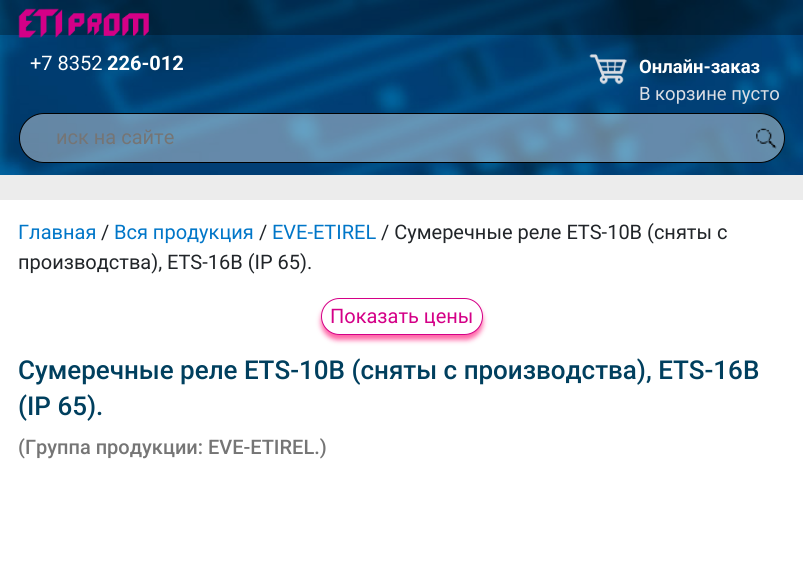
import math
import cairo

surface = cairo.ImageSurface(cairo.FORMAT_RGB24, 803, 586)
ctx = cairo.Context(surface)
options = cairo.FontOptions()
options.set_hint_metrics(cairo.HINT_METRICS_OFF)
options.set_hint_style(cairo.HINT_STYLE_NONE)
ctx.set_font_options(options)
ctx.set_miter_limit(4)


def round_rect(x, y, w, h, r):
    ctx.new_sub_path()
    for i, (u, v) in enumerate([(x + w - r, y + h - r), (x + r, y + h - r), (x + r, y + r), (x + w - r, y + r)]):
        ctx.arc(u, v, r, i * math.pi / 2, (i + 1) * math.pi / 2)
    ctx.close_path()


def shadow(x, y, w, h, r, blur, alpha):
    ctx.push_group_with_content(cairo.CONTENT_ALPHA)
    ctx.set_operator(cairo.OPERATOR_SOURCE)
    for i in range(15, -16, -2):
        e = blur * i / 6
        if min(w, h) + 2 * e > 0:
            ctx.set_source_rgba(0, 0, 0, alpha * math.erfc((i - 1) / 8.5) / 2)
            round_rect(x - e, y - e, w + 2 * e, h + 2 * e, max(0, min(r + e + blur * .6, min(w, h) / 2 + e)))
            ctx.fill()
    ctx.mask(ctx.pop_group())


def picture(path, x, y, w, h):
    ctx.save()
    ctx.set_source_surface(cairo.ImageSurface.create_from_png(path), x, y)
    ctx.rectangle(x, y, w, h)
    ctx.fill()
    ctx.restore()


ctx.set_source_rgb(0.922, 0.922, 0.922)
ctx.paint()
picture("img2.png", 0, 0, 803, 175)
ctx.set_source_rgba(0, 0, 0, 0.3)
ctx.rectangle(0, 0, 803, 35)
ctx.fill()
picture("img1.png", 18, 8, 131, 30)
ctx.select_font_face("Roboto")
ctx.set_font_size(20)
ctx.set_source_rgb(1, 1, 1)
ctx.move_to(30, 70)
ctx.show_text("+7 8352")
ctx.select_font_face("Roboto", cairo.FONT_SLANT_NORMAL, cairo.FONT_WEIGHT_BOLD)
ctx.move_to(107, 70)
ctx.show_text("226-012")
picture("img3.png", 589, 54, 38, 31)
ctx.set_font_size(18.5)
ctx.move_to(639, 73)
ctx.show_text("Онлайн-заказ")
ctx.select_font_face("Roboto")
ctx.set_source_rgb(0.855, 0.867, 0.894)
ctx.move_to(639, 100)
ctx.show_text("В корзине пусто")
ctx.set_source_rgba(0.98, 0.98, 0.98, 0.4)
round_rect(19.5, 113.5, 765, 49, 24.5)
ctx.fill_preserve()
ctx.set_source_rgb(0, 0, 0)
ctx.set_line_width(1)
ctx.stroke()
ctx.set_font_size(20)
ctx.set_source_rgb(0.459, 0.459, 0.459)
ctx.move_to(56, 144)
ctx.show_text("иск на сайте")
picture("img4.png", 756, 128, 21, 21)
ctx.set_source_rgb(1, 1, 1)
ctx.rectangle(0, 200, 803, 386)
ctx.fill()
ctx.set_source_rgb(0, 0.463, 0.784)
ctx.move_to(18, 239)
ctx.show_text("Главная")
ctx.set_source_rgb(0.129, 0.145, 0.161)
ctx.move_to(101, 239)
ctx.show_text("/")
ctx.set_source_rgb(0, 0.463, 0.784)
ctx.move_to(114, 239)
ctx.show_text("Вся продукция")
ctx.set_source_rgb(0.129, 0.145, 0.161)
ctx.move_to(259, 239)
ctx.show_text("/")
ctx.set_source_rgb(0, 0.463, 0.784)
ctx.move_to(272, 239)
ctx.show_text("EVE-ETIREL")
ctx.set_source_rgb(0.129, 0.145, 0.161)
ctx.move_to(381, 239)
ctx.show_text("/ Сумеречные реле ETS-10B (сняты с")
ctx.move_to(18, 269)
ctx.show_text("производства), ETS-16B (IP 65).")
ctx.set_source_rgb(1, 0, 0.424)
shadow(321, 303, 162, 37, 18.5, 2.5, 0.6)
ctx.set_source_rgb(1, 1, 1)
round_rect(321.5, 298.5, 161, 36, 18)
ctx.fill_preserve()
ctx.set_source_rgb(0.831, 0, 0.529)
ctx.stroke()
ctx.move_to(330, 323)
ctx.show_text("Показать цены")
ctx.select_font_face("Roboto Medium")
ctx.set_font_size(26)
ctx.set_source_rgb(0, 0.247, 0.369)
ctx.move_to(18, 379)
ctx.show_text("Сумеречные реле ETS-10B (сняты с производства), ETS-16B")
ctx.move_to(18, 415)
ctx.show_text("(IP 65).")
ctx.set_font_size(20)
ctx.set_source_rgb(0.459, 0.459, 0.459)
ctx.move_to(18, 454)
ctx.show_text("(Группа продукции: EVE-ETIREL.)")
surface.write_to_png("page.png")
